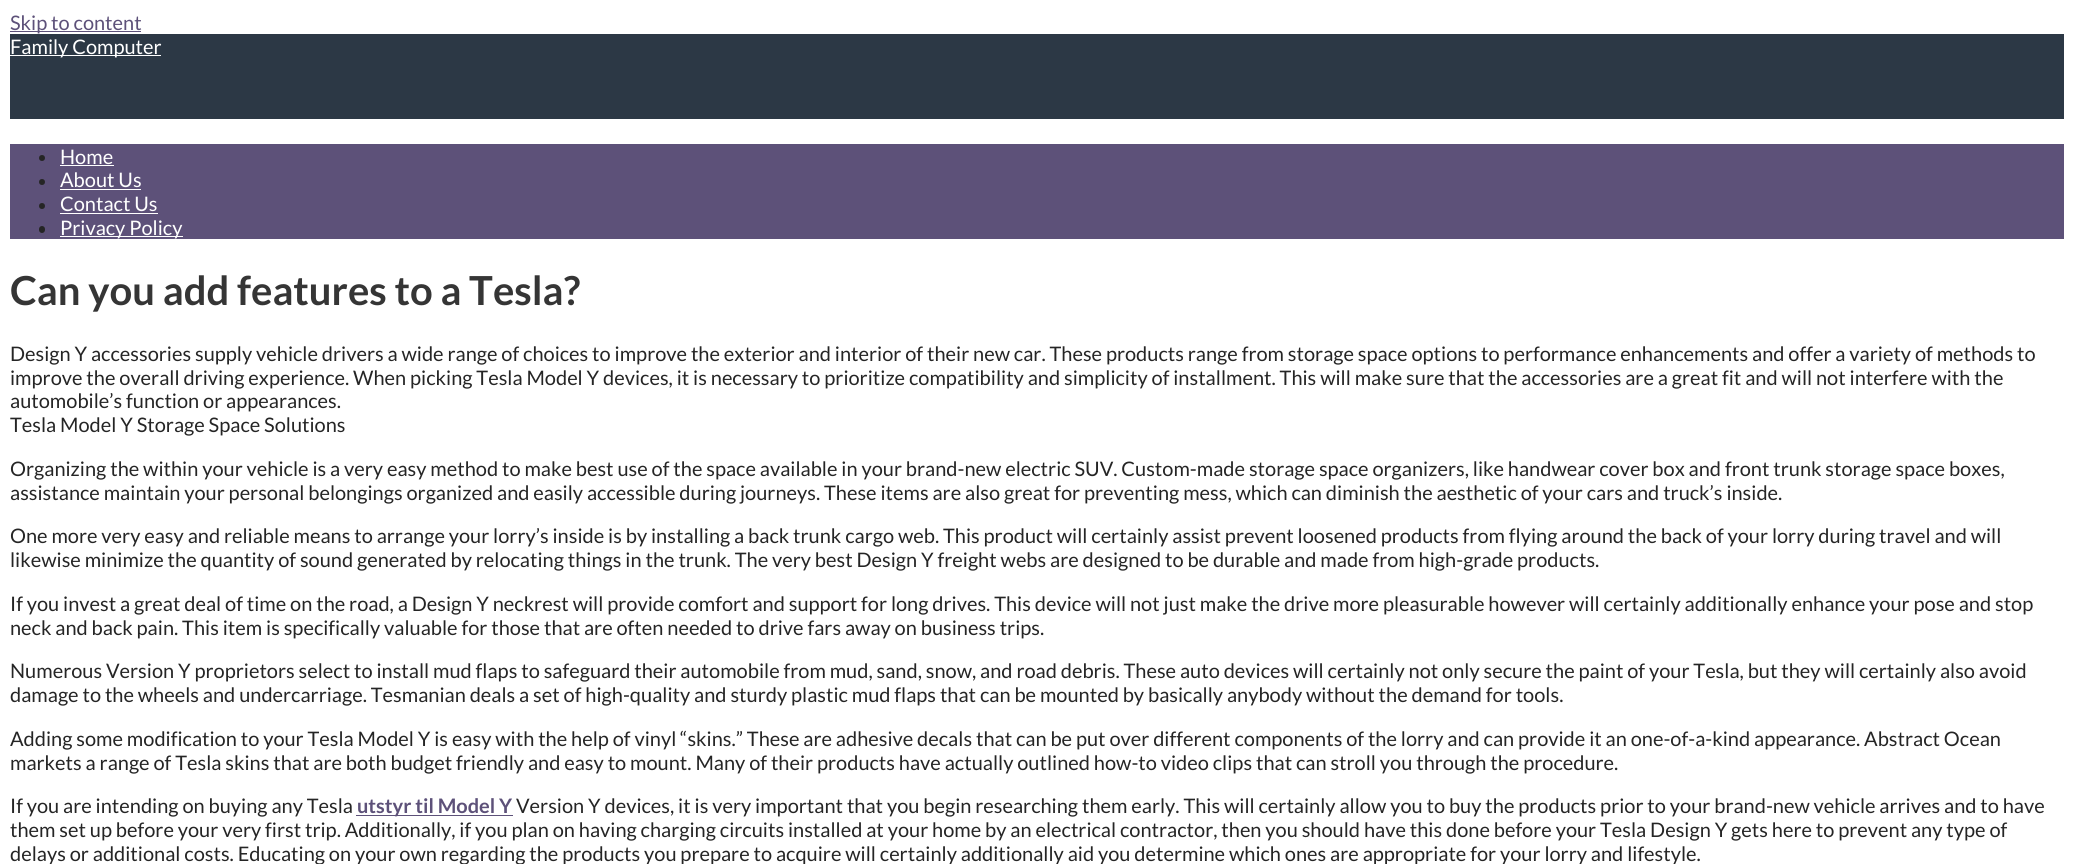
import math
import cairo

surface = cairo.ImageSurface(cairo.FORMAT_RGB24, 2073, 864)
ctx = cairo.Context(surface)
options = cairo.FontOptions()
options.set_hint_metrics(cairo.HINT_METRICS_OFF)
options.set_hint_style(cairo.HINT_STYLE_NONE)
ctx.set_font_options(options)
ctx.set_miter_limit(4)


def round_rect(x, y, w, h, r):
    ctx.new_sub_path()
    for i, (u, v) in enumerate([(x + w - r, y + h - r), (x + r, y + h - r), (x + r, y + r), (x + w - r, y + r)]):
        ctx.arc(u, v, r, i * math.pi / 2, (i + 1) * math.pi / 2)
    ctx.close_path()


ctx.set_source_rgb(1, 1, 1)
ctx.paint()
ctx.set_source_rgb(0.365, 0.318, 0.475)
ctx.rectangle(10, 31, 131, 1)
ctx.fill()
ctx.select_font_face("Lato")
ctx.set_font_size(20)
ctx.move_to(10, 30)
ctx.show_text("Skip to content")
ctx.set_source_rgb(0.173, 0.22, 0.271)
ctx.rectangle(10, 34, 2054, 85)
ctx.fill()
ctx.set_source_rgb(1, 1, 1)
ctx.rectangle(10, 55, 151, 1)
ctx.fill()
ctx.move_to(10, 54)
ctx.show_text("Family Computer")
ctx.set_source_rgb(0.365, 0.318, 0.475)
ctx.rectangle(10, 144, 2054, 95)
ctx.fill()
ctx.set_source_rgb(0.145, 0.145, 0.145)
ctx.arc(42, 158, 3, 0, 2 * math.pi)
ctx.fill()
ctx.set_source_rgb(1, 1, 1)
ctx.move_to(60, 164)
ctx.show_text("Home")
ctx.rectangle(60, 165, 54, 1)
ctx.fill()
ctx.set_source_rgb(0.145, 0.145, 0.145)
ctx.arc(42, 182, 3, 0, 2 * math.pi)
ctx.fill()
ctx.set_source_rgb(1, 1, 1)
ctx.move_to(60, 187)
ctx.show_text("About Us")
ctx.rectangle(60, 189, 81, 1)
ctx.fill()
ctx.set_source_rgb(0.145, 0.145, 0.145)
ctx.arc(42, 206, 3, 0, 2 * math.pi)
ctx.fill()
ctx.set_source_rgb(1, 1, 1)
ctx.move_to(60, 211)
ctx.show_text("Contact Us")
ctx.rectangle(60, 213, 98, 1)
ctx.fill()
ctx.set_source_rgb(0.145, 0.145, 0.145)
round_rect(39, 226, 6, 7, 3)
ctx.fill()
ctx.set_source_rgb(1, 1, 1)
ctx.rectangle(60, 236, 123, 1)
ctx.fill()
ctx.move_to(60, 235)
ctx.show_text("Privacy Policy")
ctx.select_font_face("Lato", cairo.FONT_SLANT_NORMAL, cairo.FONT_WEIGHT_BOLD)
ctx.set_font_size(40)
ctx.set_source_rgb(0.208, 0.208, 0.208)
ctx.move_to(10, 305)
ctx.show_text("Can you add features to a Tesla?")
ctx.select_font_face("Lato")
ctx.set_font_size(20)
ctx.set_source_rgb(0.145, 0.145, 0.145)
ctx.move_to(10, 361)
ctx.show_text("Design Y accessories supply vehicle drivers a wide range of choices to improve the exterior and interior of their new car. These products range from storage space options to performance enhancements and offer a variety of methods to")
ctx.move_to(10, 385)
ctx.show_text("improve the overall driving experience. When picking Tesla Model Y devices, it is necessary to prioritize compatibility and simplicity of installment. This will make sure that the accessories are a great fit and will not interfere with the")
ctx.move_to(10, 408)
ctx.show_text("automobile’s function or appearances.")
ctx.move_to(10, 432)
ctx.show_text("Tesla Model Y Storage Space Solutions")
ctx.move_to(10, 476)
ctx.show_text("Organizing the within your vehicle is a very easy method to make best use of the space available in your brand-new electric SUV. Custom-made storage space organizers, like handwear cover box and front trunk storage space boxes,")
ctx.move_to(10, 500)
ctx.show_text("assistance maintain your personal belongings organized and easily accessible during journeys. These items are also great for preventing mess, which can diminish the aesthetic of your cars and truck’s inside.")
ctx.move_to(10, 543)
ctx.show_text("One more very easy and reliable means to arrange your lorry’s inside is by installing a back trunk cargo web. This product will certainly assist prevent loosened products from flying around the back of your lorry during travel and will")
ctx.move_to(10, 567)
ctx.show_text("likewise minimize the quantity of sound generated by relocating things in the trunk. The very best Design Y freight webs are designed to be durable and made from high-grade products.")
ctx.move_to(10, 611)
ctx.show_text("If you invest a great deal of time on the road, a Design Y neckrest will provide comfort and support for long drives. This device will not just make the drive more pleasurable however will certainly additionally enhance your pose and stop")
ctx.move_to(10, 635)
ctx.show_text("neck and back pain. This item is specifically valuable for those that are often needed to drive fars away on business trips.")
ctx.move_to(10, 678)
ctx.show_text("Numerous Version Y proprietors select to install mud flaps to safeguard their automobile from mud, sand, snow, and road debris. These auto devices will certainly not only secure the paint of your Tesla, but they will certainly also avoid")
ctx.move_to(10, 702)
ctx.show_text("damage to the wheels and undercarriage. Tesmanian deals a set of high-quality and sturdy plastic mud flaps that can be mounted by basically anybody without the demand for tools.")
ctx.move_to(10, 746)
ctx.show_text("Adding some modification to your Tesla Model Y is easy with the help of vinyl “skins.” These are adhesive decals that can be put over different components of the lorry and can provide it an one-of-a-kind appearance. Abstract Ocean")
ctx.move_to(10, 770)
ctx.show_text("markets a range of Tesla skins that are both budget friendly and easy to mount. Many of their products have actually outlined how-to video clips that can stroll you through the procedure.")
ctx.move_to(10, 813)
ctx.show_text("If you are intending on buying any Tesla")
ctx.set_source_rgb(0.365, 0.318, 0.475)
ctx.rectangle(356, 815, 157, 1)
ctx.fill()
ctx.select_font_face("Lato", cairo.FONT_SLANT_NORMAL, cairo.FONT_WEIGHT_BOLD)
ctx.move_to(357, 813)
ctx.show_text("utstyr til Model Y")
ctx.select_font_face("Lato")
ctx.set_source_rgb(0.145, 0.145, 0.145)
ctx.move_to(516, 813)
ctx.show_text("Version Y devices, it is very important that you begin researching them early. This will certainly allow you to buy the products prior to your brand-new vehicle arrives and to have")
ctx.move_to(10, 837)
ctx.show_text("them set up before your very first trip. Additionally, if you plan on having charging circuits installed at your home by an electrical contractor, then you should have this done before your Tesla Design Y gets here to prevent any type of")
ctx.move_to(10, 861)
ctx.show_text("delays or additional costs. Educating on your own regarding the products you prepare to acquire will certainly additionally aid you determine which ones are appropriate for your lorry and lifestyle.")
surface.write_to_png("page.png")
